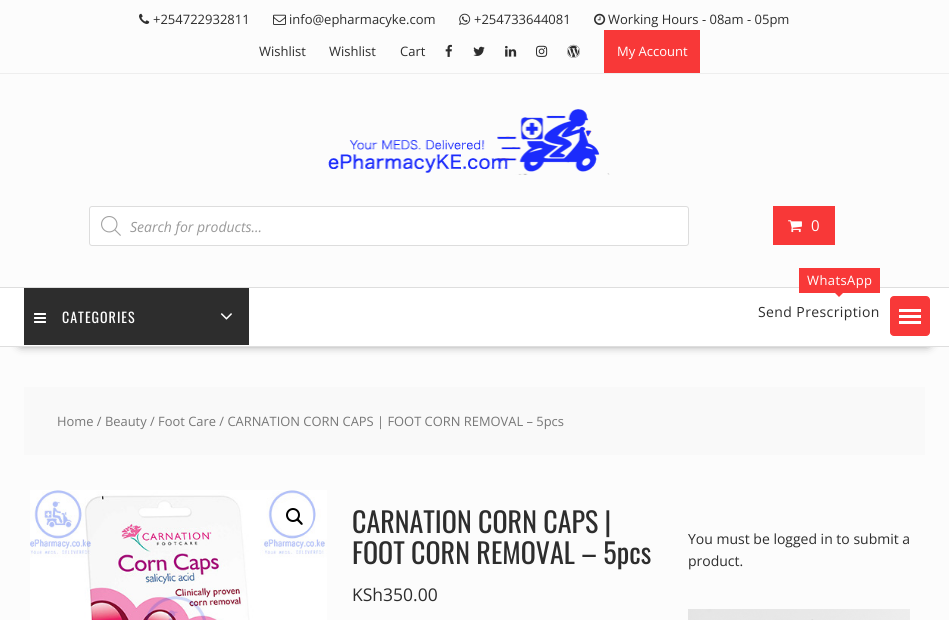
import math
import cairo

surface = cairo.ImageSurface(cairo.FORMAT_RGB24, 949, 620)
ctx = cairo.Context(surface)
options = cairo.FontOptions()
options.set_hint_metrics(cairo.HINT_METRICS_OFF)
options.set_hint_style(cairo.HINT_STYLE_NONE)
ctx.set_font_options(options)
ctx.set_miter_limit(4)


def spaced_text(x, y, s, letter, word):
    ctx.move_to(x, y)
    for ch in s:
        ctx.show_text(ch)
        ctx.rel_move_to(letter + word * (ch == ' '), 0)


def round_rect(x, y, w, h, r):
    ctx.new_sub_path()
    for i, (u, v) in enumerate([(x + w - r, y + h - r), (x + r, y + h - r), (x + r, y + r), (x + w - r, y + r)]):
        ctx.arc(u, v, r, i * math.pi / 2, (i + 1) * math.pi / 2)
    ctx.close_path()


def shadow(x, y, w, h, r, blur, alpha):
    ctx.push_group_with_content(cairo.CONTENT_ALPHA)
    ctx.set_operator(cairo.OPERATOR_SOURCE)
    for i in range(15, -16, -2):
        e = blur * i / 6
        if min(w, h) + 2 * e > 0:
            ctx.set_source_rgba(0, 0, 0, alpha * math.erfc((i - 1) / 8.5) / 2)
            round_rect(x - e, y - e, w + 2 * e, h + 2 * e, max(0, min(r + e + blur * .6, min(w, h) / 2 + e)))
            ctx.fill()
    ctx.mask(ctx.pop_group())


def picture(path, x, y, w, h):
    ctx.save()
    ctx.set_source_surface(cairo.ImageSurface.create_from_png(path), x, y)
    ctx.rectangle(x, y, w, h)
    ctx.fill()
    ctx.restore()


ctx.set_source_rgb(0.988, 0.988, 0.988)
ctx.paint()
ctx.set_source_rgb(0.933, 0.933, 0.933)
ctx.rectangle(0, 73, 949, 1)
ctx.fill()
picture("img1.png", 139, 13, 11, 11)
ctx.select_font_face("Open Sans")
ctx.set_font_size(13)
ctx.set_source_rgb(0.176, 0.176, 0.176)
ctx.move_to(153, 24)
ctx.show_text("+254722932811")
picture("img2.png", 273, 14, 13, 11)
ctx.move_to(289, 24)
ctx.show_text("info@epharmacyke.com")
picture("img3.png", 459, 13, 12, 12)
ctx.move_to(474, 24)
ctx.show_text("+254733644081")
picture("img4.png", 594, 13, 12, 12)
ctx.move_to(608, 24)
ctx.show_text("Working Hours - 08am - 05pm")
ctx.move_to(259, 56)
ctx.show_text("Wishlist")
ctx.move_to(329, 56)
ctx.show_text("Wishlist")
ctx.move_to(400, 56)
ctx.show_text("Cart")
picture("img5.png", 445, 44, 7, 13)
picture("img6.png", 473, 46, 12, 10)
picture("img7.png", 505, 45, 12, 12)
picture("img8.png", 536, 45, 12, 12)
picture("img9.png", 567, 44, 13, 14)
ctx.set_source_rgb(0.969, 0.22, 0.22)
ctx.rectangle(604, 30, 96, 43)
ctx.fill()
ctx.set_source_rgb(1, 1, 1)
ctx.move_to(617, 56)
ctx.show_text("My Account")
picture("img10.png", 328, 109, 282, 66)
round_rect(89.5, 206.5, 599, 39, 2.5)
ctx.fill_preserve()
ctx.set_source_rgb(0.867, 0.867, 0.867)
ctx.set_line_width(1)
ctx.stroke()
picture("img11.png", 101, 216, 20, 20)
ctx.select_font_face("Open Sans", cairo.FONT_SLANT_ITALIC)
ctx.set_font_size(14)
ctx.set_source_rgb(0.6, 0.6, 0.6)
ctx.move_to(130, 232)
ctx.show_text("Search for products...")
ctx.set_source_rgb(0.969, 0.22, 0.22)
ctx.rectangle(773, 206, 62, 39)
ctx.fill()
picture("img12.png", 788, 220, 14, 13)
ctx.select_font_face("Open Sans")
ctx.set_font_size(15)
ctx.set_source_rgb(1, 1, 1)
ctx.move_to(811, 231)
ctx.show_text("0")
ctx.set_source_rgb(0, 0, 0)
shadow(21, 325, 907, 18, 0, 5.5, 0.75)
ctx.set_source_rgb(1, 1, 1)
ctx.rectangle(0, 288, 949, 58)
ctx.fill()
ctx.set_source_rgb(0.871, 0.871, 0.871)
ctx.rectangle(0, 287, 949, 1)
ctx.fill()
ctx.rectangle(0, 346, 949, 1)
ctx.fill()
ctx.set_source_rgb(0.176, 0.176, 0.176)
ctx.rectangle(24, 288, 225, 57)
ctx.fill()
picture("img13.png", 34, 313, 12, 10)
ctx.select_font_face("Oswald")
ctx.set_font_size(14)
ctx.set_source_rgb(1, 1, 1)
spaced_text(62, 323, "CATEGORIES", 1, 0)
picture("img14.png", 220, 313, 12, 7)
ctx.set_source_rgb(0.969, 0.22, 0.22)
ctx.rectangle(799, 268, 81, 25)
ctx.fill()
ctx.select_font_face("Open Sans")
ctx.set_font_size(13)
ctx.set_source_rgb(1, 1, 1)
spaced_text(807, 285, "WhatsApp", 0.4, 0)
ctx.set_source_rgb(0.969, 0.22, 0.22)
ctx.new_path()
ctx.move_to(834, 292)
ctx.line_to(844, 292)
ctx.line_to(839, 297)
ctx.close_path()
ctx.fill()
ctx.set_font_size(14)
ctx.set_source_rgb(0.176, 0.176, 0.176)
spaced_text(758, 317, "Send Prescription", 0.4, 0)
ctx.set_source_rgb(0.969, 0.22, 0.22)
round_rect(890.5, 296.5, 39, 39, 3.5)
ctx.fill_preserve()
ctx.stroke()
ctx.set_source_rgb(1, 1, 1)
ctx.rectangle(899, 321, 22, 3)
ctx.fill()
ctx.rectangle(899, 315, 22, 3)
ctx.fill()
ctx.rectangle(899, 309, 22, 3)
ctx.fill()
ctx.set_source_rgb(0.973, 0.973, 0.973)
ctx.rectangle(24, 387, 901, 68)
ctx.fill()
ctx.set_font_size(12.9)
ctx.set_source_rgb(0.467, 0.467, 0.467)
ctx.move_to(57, 426)
ctx.show_text("Home / Beauty / Foot Care / CARNATION CORN CAPS | FOOT CORN REMOVAL – 5pcs")
picture("img15.png", 30, 490, 297, 130)
ctx.set_source_rgb(1, 1, 1)
ctx.arc(295, 517, 18, 0, 2 * math.pi)
ctx.fill()
ctx.arc(293, 515, 6, 0, 2 * math.pi)
ctx.set_source_rgb(0, 0, 0)
ctx.set_line_width(2)
ctx.stroke()
ctx.new_path()
ctx.move_to(297, 519)
ctx.curve_to(298, 517.5, 300, 520.5, 300.5, 521)
ctx.curve_to(301, 521.5, 303.5, 523.5, 302.5, 524.5)
ctx.curve_to(301.5, 526, 299.5, 523, 299, 522.5)
ctx.curve_to(298.5, 522, 295.5, 520, 297, 519)
ctx.close_path()
ctx.fill()
ctx.select_font_face("Oswald")
ctx.set_font_size(28)
ctx.set_source_rgb(0.176, 0.176, 0.176)
ctx.move_to(352, 533)
ctx.show_text("CARNATION CORN CAPS |")
ctx.move_to(352, 564)
ctx.show_text("FOOT CORN REMOVAL – 5pcs")
ctx.select_font_face("Open Sans")
ctx.set_font_size(17.5)
ctx.move_to(352, 601)
ctx.show_text("KSh350.00")
ctx.set_font_size(14)
ctx.move_to(688, 544)
ctx.show_text("You must be logged in to submit a")
ctx.move_to(688, 566)
ctx.show_text("product.")
picture("img16.png", 688, 609, 222, 11)
surface.write_to_png("page.png")
